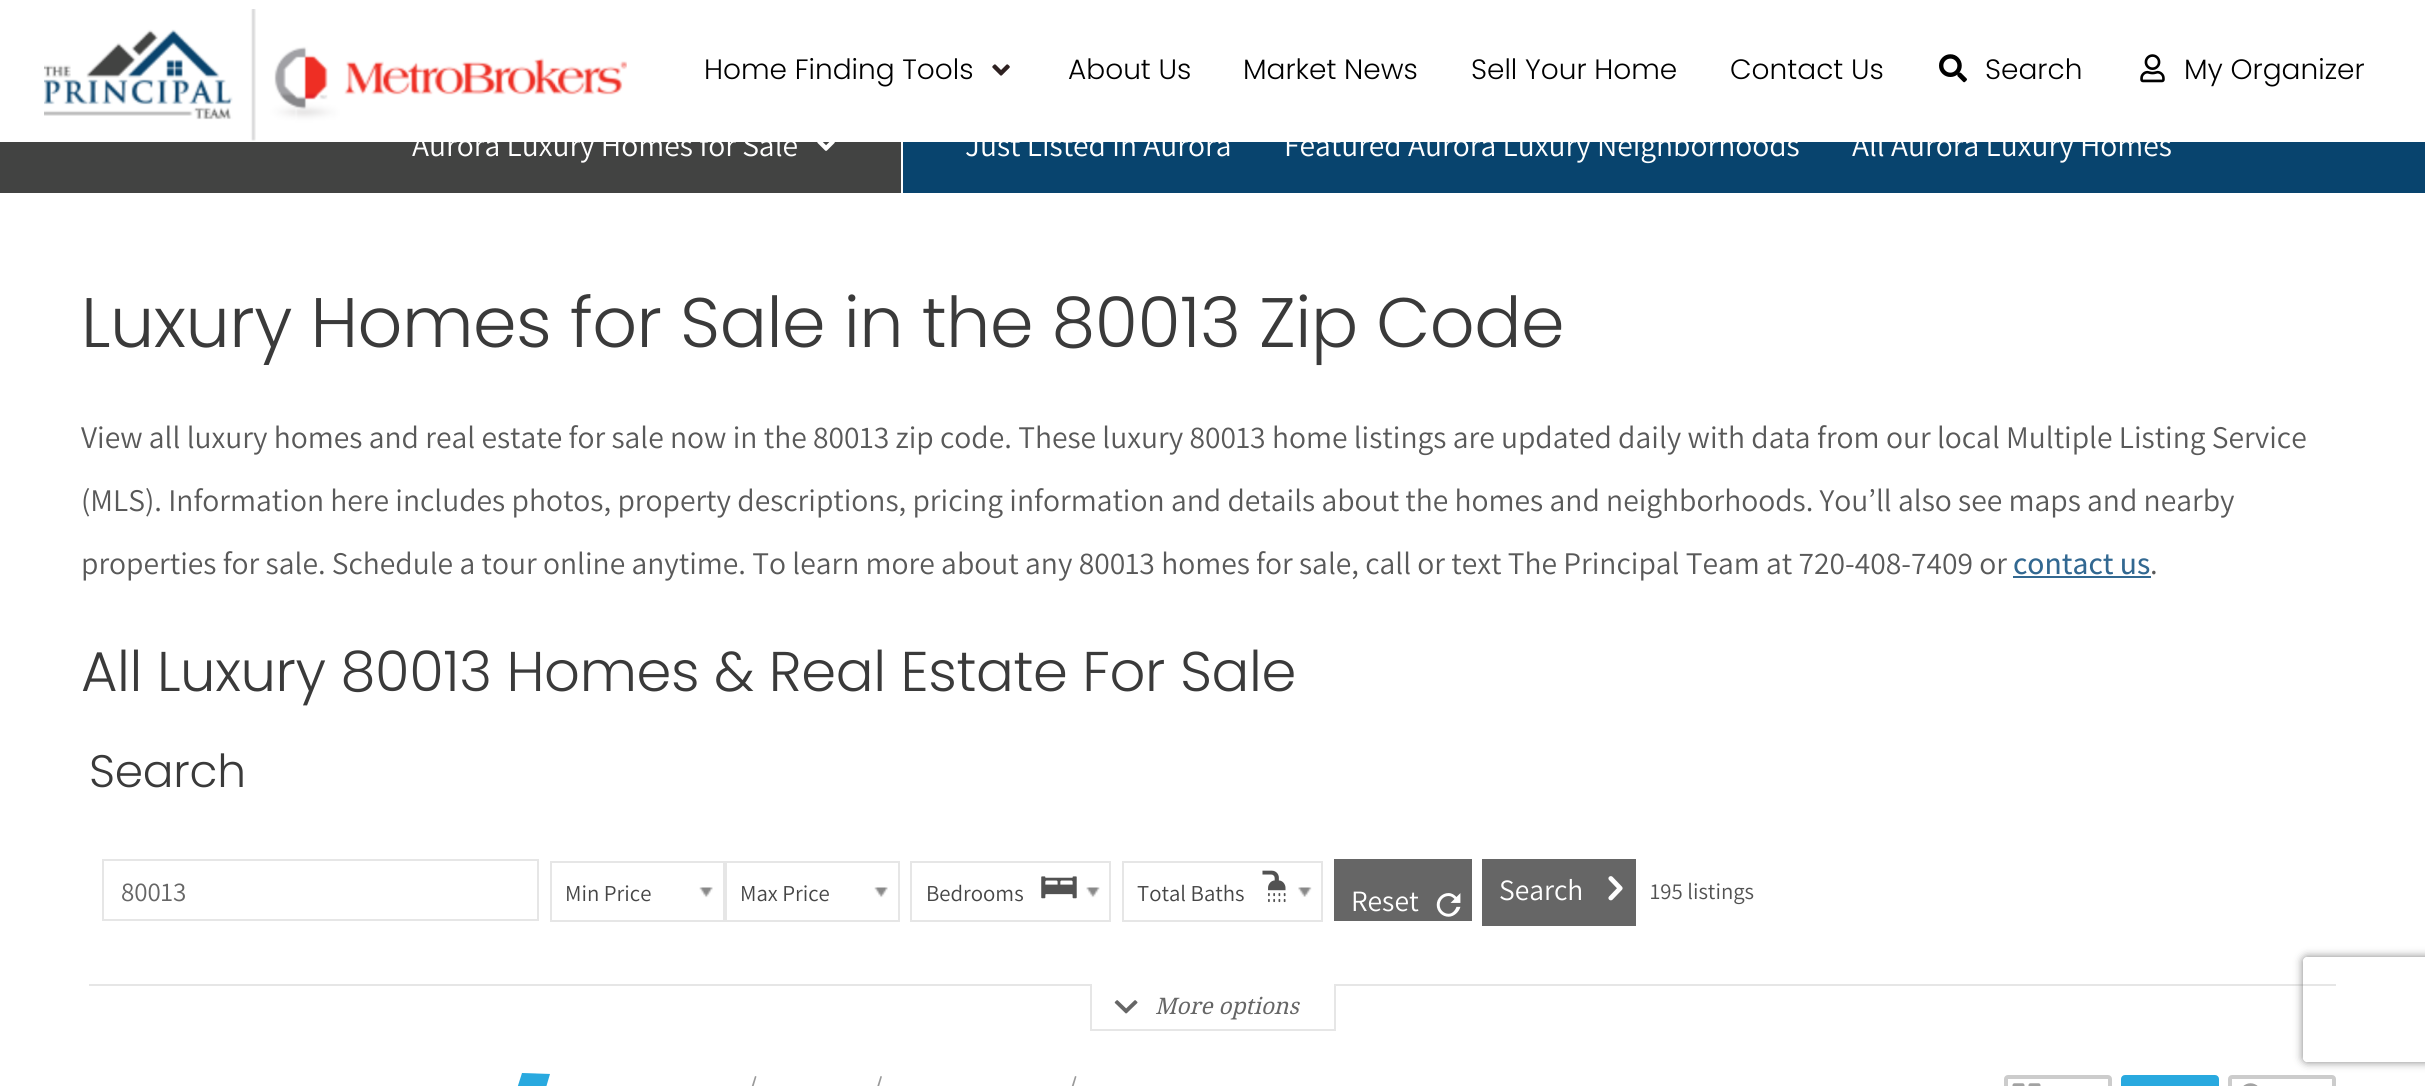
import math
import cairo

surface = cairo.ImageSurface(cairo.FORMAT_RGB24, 2425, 1086)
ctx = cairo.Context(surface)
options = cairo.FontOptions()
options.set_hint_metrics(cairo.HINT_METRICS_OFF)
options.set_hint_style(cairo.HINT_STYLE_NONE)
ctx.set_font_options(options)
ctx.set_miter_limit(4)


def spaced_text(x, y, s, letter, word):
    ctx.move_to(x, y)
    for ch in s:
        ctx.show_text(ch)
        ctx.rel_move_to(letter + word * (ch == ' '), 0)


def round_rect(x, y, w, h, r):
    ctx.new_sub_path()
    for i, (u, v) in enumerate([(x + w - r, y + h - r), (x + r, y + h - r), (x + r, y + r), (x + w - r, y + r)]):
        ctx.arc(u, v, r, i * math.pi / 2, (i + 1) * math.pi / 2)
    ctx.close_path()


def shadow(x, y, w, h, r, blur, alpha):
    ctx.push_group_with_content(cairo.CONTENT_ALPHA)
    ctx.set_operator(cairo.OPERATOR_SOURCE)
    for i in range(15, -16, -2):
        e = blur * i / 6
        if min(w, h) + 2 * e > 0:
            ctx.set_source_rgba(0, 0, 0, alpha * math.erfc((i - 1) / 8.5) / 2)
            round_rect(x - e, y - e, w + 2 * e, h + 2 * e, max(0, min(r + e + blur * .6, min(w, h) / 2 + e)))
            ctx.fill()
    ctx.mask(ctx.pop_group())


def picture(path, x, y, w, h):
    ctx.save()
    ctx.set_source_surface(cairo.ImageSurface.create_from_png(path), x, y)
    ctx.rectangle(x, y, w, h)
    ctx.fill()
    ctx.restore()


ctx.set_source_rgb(1, 1, 1)
ctx.paint()
ctx.set_source_rgb(0.259, 0.263, 0.259)
ctx.rectangle(0, 142, 901, 51)
ctx.fill()
ctx.select_font_face("Assistant")
ctx.set_font_size(31.5)
ctx.set_source_rgb(1, 1, 1)
ctx.move_to(412, 156)
ctx.show_text("Aurora Luxury Homes for Sale")
picture("img1.png", 44, 9, 583, 132)
ctx.select_font_face("Poppins Light")
ctx.set_font_size(28)
ctx.set_source_rgb(0, 0, 0)
ctx.move_to(704, 79)
ctx.show_text("Home Finding Tools")
picture("img2.png", 992, 64, 18, 12)
ctx.move_to(1068, 79)
ctx.show_text("About Us")
ctx.move_to(1243, 79)
ctx.show_text("Market News")
ctx.move_to(1471, 79)
ctx.show_text("Sell Your Home")
ctx.move_to(1730, 79)
ctx.show_text("Contact Us")
picture("img3.png", 1939, 54, 28, 29)
ctx.move_to(1985, 79)
ctx.show_text("Search")
picture("img4.png", 2140, 54, 25, 29)
ctx.move_to(2184, 79)
ctx.show_text("My Organizer")
picture("img5.png", 817, 142, 18, 9)
ctx.set_source_rgb(0.035, 0.267, 0.431)
ctx.rectangle(903, 142, 1522, 51)
ctx.fill()
ctx.select_font_face("Assistant")
ctx.set_font_size(31.5)
ctx.set_source_rgb(1, 1, 1)
ctx.move_to(965, 156)
ctx.show_text("Just Listed in Aurora")
ctx.move_to(1284, 156)
ctx.show_text("Featured Aurora Luxury Neighborhoods")
ctx.move_to(1852, 156)
ctx.show_text("All Aurora Luxury Homes")
ctx.select_font_face("Poppins Light")
ctx.set_font_size(70)
ctx.set_source_rgb(0.227, 0.227, 0.227)
spaced_text(81, 347, "Luxury Homes for Sale in the 80013 Zip Code", -0.5, 0)
ctx.select_font_face("Assistant")
ctx.set_font_size(31.5)
ctx.set_source_rgb(0.349, 0.349, 0.349)
ctx.move_to(81, 448)
ctx.show_text("View all luxury homes and real estate for sale now in the 80013 zip code. These luxury 80013 home listings are updated daily with data from our local Multiple Listing Service")
ctx.move_to(81, 511)
ctx.show_text("(MLS). Information here includes photos, property descriptions, pricing information and details about the homes and neighborhoods. You’ll also see maps and nearby")
ctx.move_to(81, 574)
ctx.show_text("properties for sale. Schedule a tour online anytime. To learn more about any 80013 homes for sale, call or text The Principal Team at 720-408-7409 or")
ctx.select_font_face("Assistant Medium")
ctx.set_source_rgb(0.196, 0.408, 0.569)
ctx.move_to(2013, 574)
ctx.show_text("contact us")
ctx.rectangle(2013, 576, 138, 2)
ctx.fill()
ctx.select_font_face("Assistant")
ctx.set_source_rgb(0.349, 0.349, 0.349)
ctx.move_to(2150, 574)
ctx.show_text(".")
ctx.select_font_face("Poppins Light")
ctx.set_font_size(56)
ctx.set_source_rgb(0.227, 0.227, 0.227)
spaced_text(81, 691, "All Luxury 80013 Homes & Real Estate For Sale", -0.4, 0)
ctx.set_font_size(45.5)
spaced_text(89, 787, "Search", -0.25, 0)
ctx.set_source_rgb(0.902, 0.902, 0.902)
ctx.rectangle(89, 984, 2247, 2)
ctx.fill()
ctx.rectangle(103, 860, 435, 60)
ctx.stroke()
ctx.select_font_face("Assistant")
ctx.set_font_size(27)
ctx.set_source_rgb(0.4, 0.4, 0.4)
ctx.move_to(121, 901)
ctx.show_text("80013")
ctx.rectangle(551, 862, 173, 59)
ctx.set_source_rgb(0.902, 0.902, 0.902)
ctx.stroke()
ctx.set_font_size(22.75)
ctx.set_source_rgb(0.275, 0.275, 0.275)
ctx.move_to(565, 901)
ctx.show_text("Min Price")
picture("img6.png", 699, 887, 14, 11)
ctx.rectangle(726, 862, 173, 59)
ctx.set_source_rgb(0.902, 0.902, 0.902)
ctx.stroke()
ctx.set_source_rgb(0.275, 0.275, 0.275)
ctx.move_to(740, 901)
ctx.show_text("Max Price")
picture("img6.png", 874, 887, 14, 11)
ctx.rectangle(911, 862, 199, 59)
ctx.set_source_rgb(0.902, 0.902, 0.902)
ctx.stroke()
ctx.set_source_rgb(0.275, 0.275, 0.275)
ctx.move_to(926, 901)
ctx.show_text("Bedrooms")
picture("img7.png", 1086, 887, 14, 11)
picture("img8.png", 1041, 876, 36, 23)
ctx.rectangle(1123, 862, 199, 59)
ctx.set_source_rgb(0.902, 0.902, 0.902)
ctx.stroke()
ctx.set_source_rgb(0.275, 0.275, 0.275)
ctx.move_to(1137, 901)
ctx.show_text("Total Baths")
picture("img9.png", 1298, 887, 14, 10)
picture("img10.png", 1262, 870, 24, 33)
ctx.set_source_rgb(0.4, 0.4, 0.4)
ctx.rectangle(1334, 859, 138, 62)
ctx.fill()
ctx.set_font_size(29.5)
ctx.set_source_rgb(1, 1, 1)
ctx.move_to(1351, 911)
ctx.show_text("Reset")
picture("img11.png", 1436, 893, 25, 24)
ctx.set_source_rgb(0.4, 0.4, 0.4)
ctx.rectangle(1482, 859, 154, 67)
ctx.fill()
ctx.set_source_rgb(1, 1, 1)
ctx.move_to(1499, 900)
ctx.show_text("Search")
picture("img12.png", 1608, 876, 15, 25)
ctx.set_font_size(22.75)
ctx.set_source_rgb(0.322, 0.322, 0.322)
ctx.move_to(1650, 899)
ctx.show_text("195 listings")
ctx.set_source_rgb(1, 1, 1)
ctx.rectangle(1090, 984, 245, 2)
ctx.fill()
ctx.set_source_rgb(0.902, 0.902, 0.902)
ctx.rectangle(1334, 984, 2, 47)
ctx.fill()
ctx.rectangle(1090, 1029, 245, 2)
ctx.fill()
ctx.rectangle(1090, 984, 2, 47)
ctx.fill()
picture("img13.png", 1114, 1000, 24, 14)
ctx.select_font_face("Droid Serif", cairo.FONT_SLANT_ITALIC)
ctx.set_source_rgb(0.4, 0.4, 0.4)
ctx.move_to(1155, 1014)
ctx.show_text("More options")
ctx.set_source_rgb(0.161, 0.663, 0.875)
ctx.new_path()
ctx.move_to(522, 1073)
ctx.line_to(550, 1074)
ctx.line_to(537, 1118)
ctx.line_to(508, 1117)
ctx.close_path()
ctx.fill()
ctx.set_source_rgb(0.6, 0.6, 0.6)
ctx.new_path()
ctx.move_to(755, 1076)
ctx.line_to(756.5, 1076.5)
ctx.line_to(747.5, 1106.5)
ctx.line_to(745.5, 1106)
ctx.close_path()
ctx.fill()
ctx.new_path()
ctx.move_to(880.5, 1076)
ctx.line_to(882, 1076.5)
ctx.line_to(873, 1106.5)
ctx.line_to(871, 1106)
ctx.close_path()
ctx.fill()
ctx.new_path()
ctx.move_to(1075, 1076)
ctx.line_to(1076.5, 1076.5)
ctx.line_to(1067.5, 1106.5)
ctx.line_to(1065.5, 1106)
ctx.close_path()
ctx.fill()
round_rect(2006, 1077, 104, 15, 2)
ctx.set_source_rgb(0.8, 0.8, 0.8)
ctx.set_line_width(4)
ctx.stroke()
picture("img14.png", 2012, 1083, 29, 3)
ctx.set_source_rgb(0.161, 0.663, 0.875)
round_rect(2123, 1077, 94, 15, 2)
ctx.fill_preserve()
ctx.stroke()
round_rect(2230, 1077, 104, 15, 2)
ctx.set_source_rgb(0.8, 0.8, 0.8)
ctx.stroke()
picture("img15.png", 2243, 1083, 15, 3)
ctx.save()
ctx.set_fill_rule(cairo.FILL_RULE_EVEN_ODD)
ctx.new_path()
ctx.move_to(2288, 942)
ctx.line_to(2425, 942)
ctx.line_to(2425, 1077)
ctx.line_to(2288, 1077)
ctx.close_path()
ctx.move_to(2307, 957)
ctx.line_to(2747, 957)
ctx.curve_to(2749, 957, 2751, 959, 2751, 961)
ctx.line_to(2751, 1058)
ctx.curve_to(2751, 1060, 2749, 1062, 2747, 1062)
ctx.line_to(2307, 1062)
ctx.curve_to(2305, 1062, 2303, 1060, 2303, 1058)
ctx.line_to(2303, 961)
ctx.curve_to(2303, 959, 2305, 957, 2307, 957)
ctx.close_path()
ctx.clip()
ctx.set_source_rgb(0.502, 0.502, 0.502)
shadow(2303, 957, 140, 105, 4, 4.5, 1)
ctx.restore()
surface.write_to_png("page.png")
